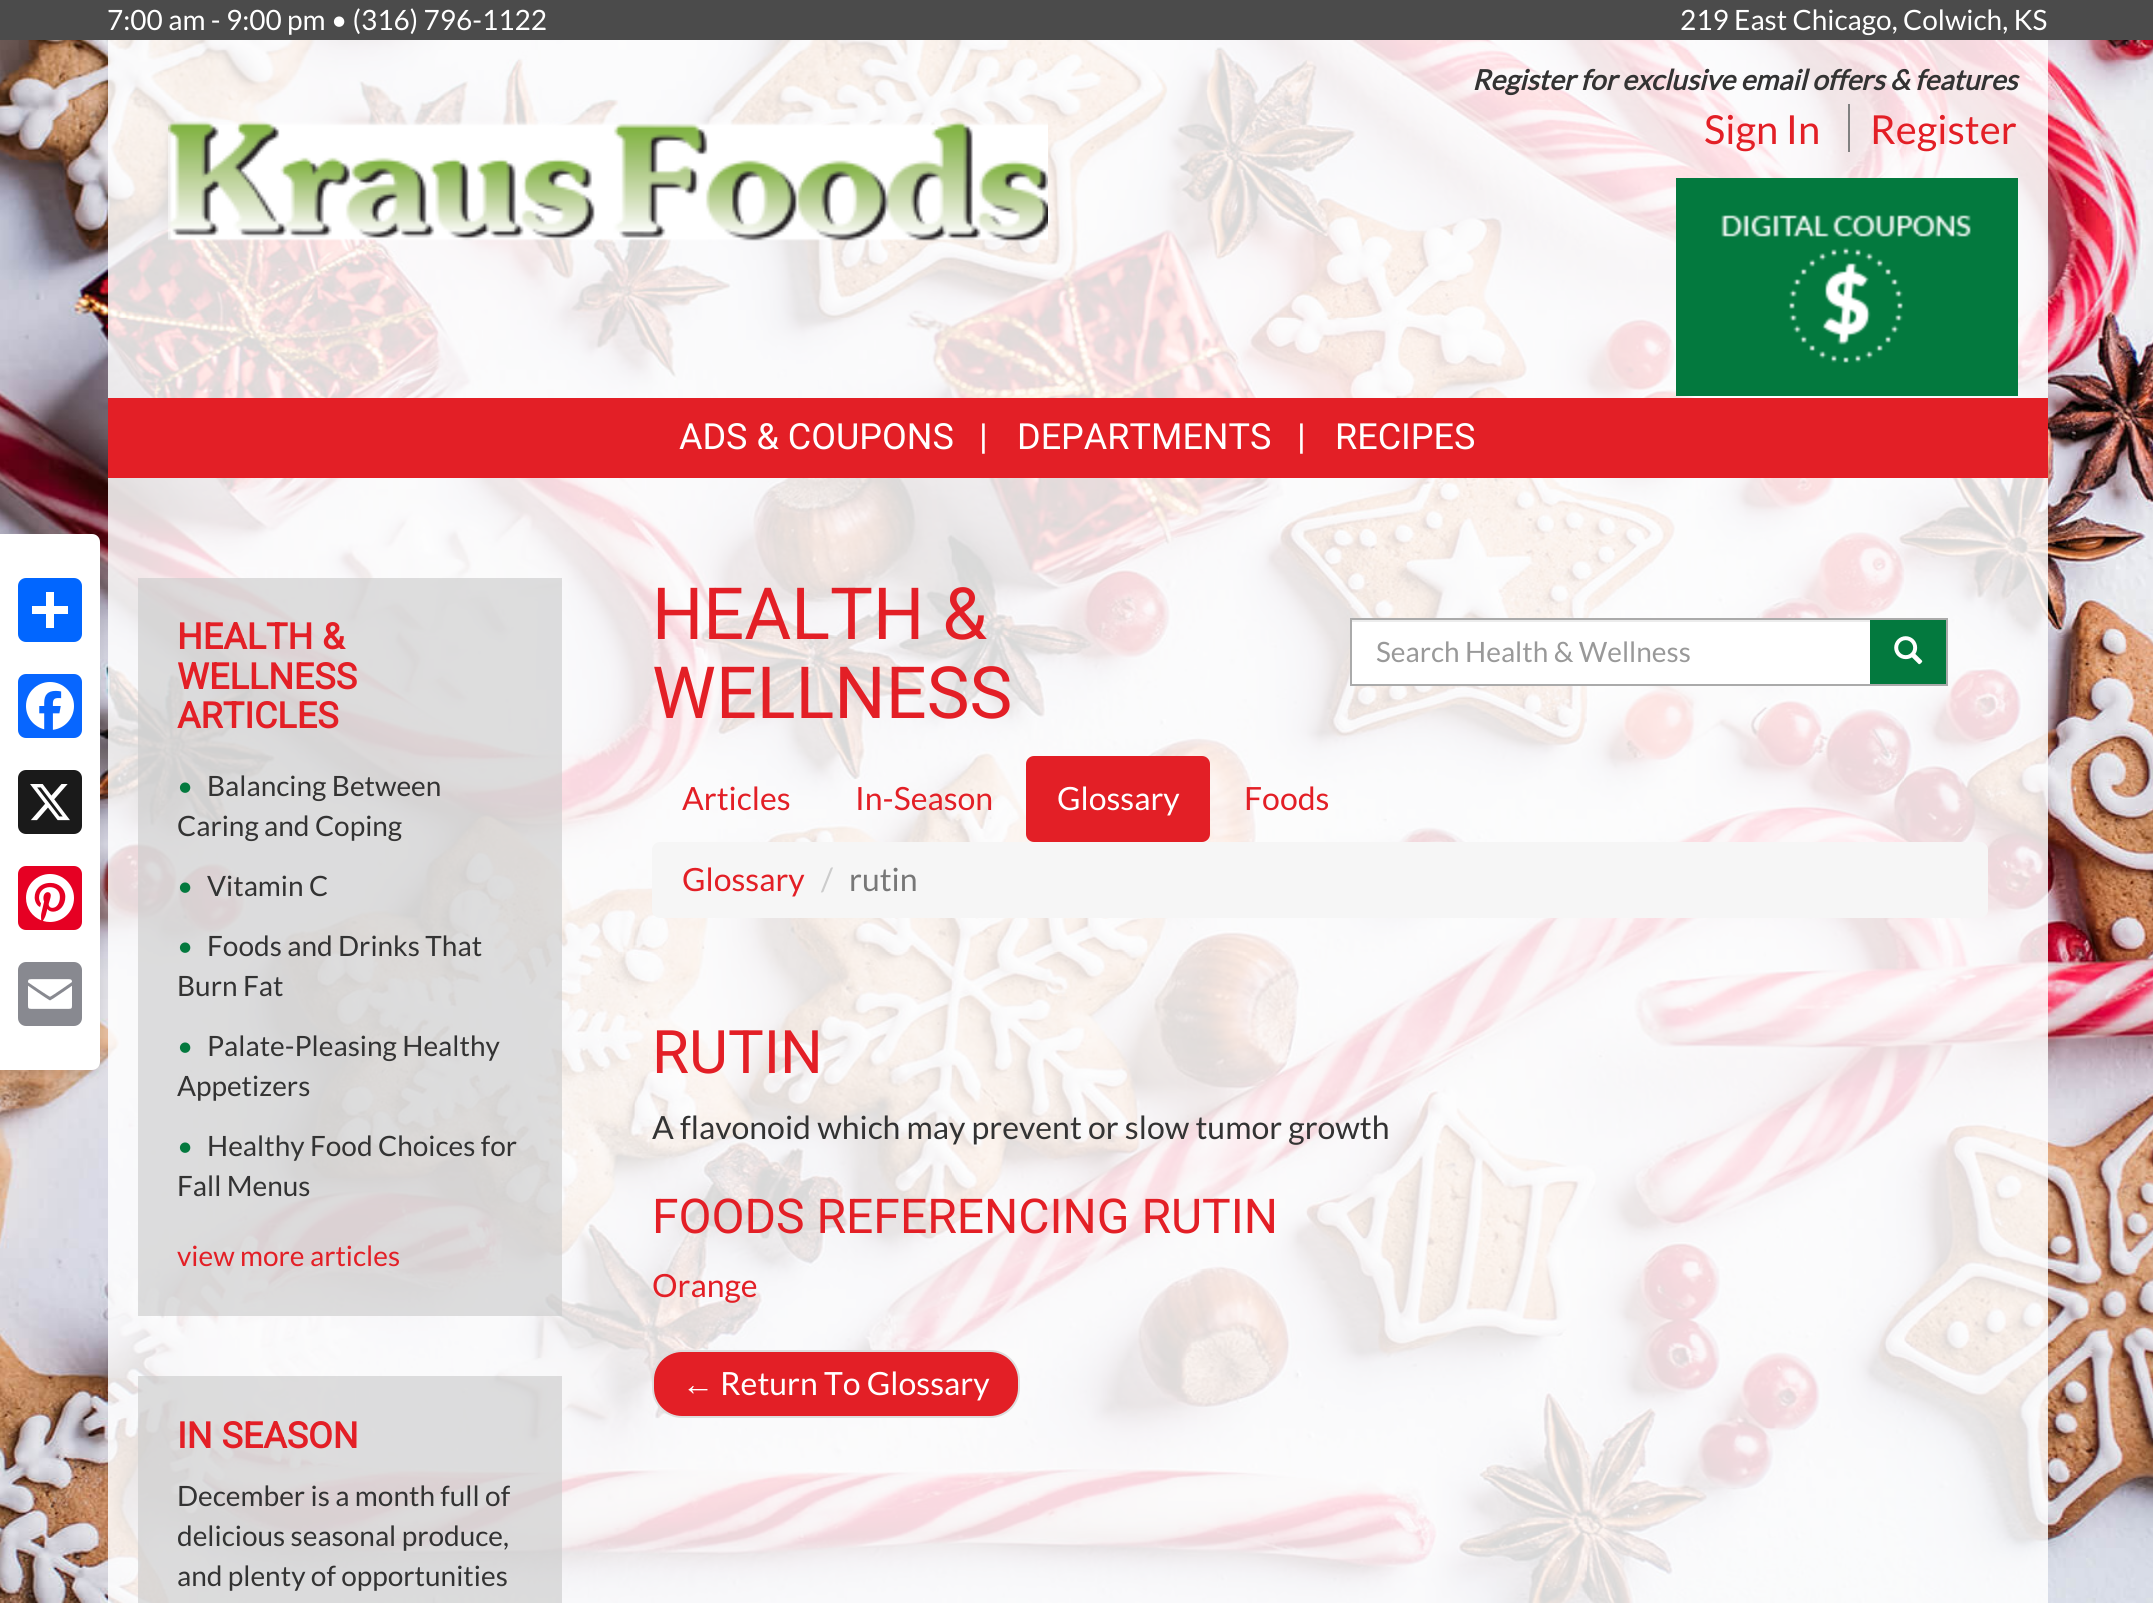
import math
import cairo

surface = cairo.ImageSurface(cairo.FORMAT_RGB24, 2153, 1603)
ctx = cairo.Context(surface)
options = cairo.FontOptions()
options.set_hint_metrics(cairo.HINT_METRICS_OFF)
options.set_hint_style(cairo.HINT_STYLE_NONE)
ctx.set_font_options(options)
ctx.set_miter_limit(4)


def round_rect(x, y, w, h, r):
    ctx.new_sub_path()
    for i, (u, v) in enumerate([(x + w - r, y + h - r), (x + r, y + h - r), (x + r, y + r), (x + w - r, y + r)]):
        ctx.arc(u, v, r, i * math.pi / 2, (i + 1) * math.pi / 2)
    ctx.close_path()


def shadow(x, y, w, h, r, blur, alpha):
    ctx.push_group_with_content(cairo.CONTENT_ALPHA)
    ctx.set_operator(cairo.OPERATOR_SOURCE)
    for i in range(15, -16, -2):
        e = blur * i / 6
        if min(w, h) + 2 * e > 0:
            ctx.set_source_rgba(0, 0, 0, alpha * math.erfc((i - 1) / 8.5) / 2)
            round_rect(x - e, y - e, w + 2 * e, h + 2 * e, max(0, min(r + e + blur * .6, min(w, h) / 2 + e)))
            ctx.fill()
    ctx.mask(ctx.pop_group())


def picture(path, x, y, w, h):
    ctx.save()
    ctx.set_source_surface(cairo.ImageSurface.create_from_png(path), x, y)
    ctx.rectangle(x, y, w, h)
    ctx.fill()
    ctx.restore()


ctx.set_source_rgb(1, 1, 1)
ctx.paint()
picture("img1.png", 0, 40, 2153, 1563)
ctx.set_source_rgb(0.294, 0.294, 0.294)
ctx.rectangle(0, 0, 2153, 40)
ctx.fill()
ctx.select_font_face("Lato")
ctx.set_font_size(28)
ctx.set_source_rgb(1, 1, 1)
ctx.move_to(107, 30)
ctx.show_text("7:00 am - 9:00 pm • (316) 796-1122")
ctx.move_to(1680, 30)
ctx.show_text("219 East Chicago, Colwich, KS")
ctx.set_source_rgba(1, 1, 1, 0.85)
ctx.rectangle(108, 478, 1940, 1125)
ctx.fill()
ctx.set_source_rgb(0, 0, 0)
shadow(0, 538, 100, 536, 8, 5, 0.1)
ctx.set_source_rgb(1, 1, 1)
ctx.new_path()
ctx.move_to(0, 534)
ctx.line_to(92, 534)
ctx.curve_to(96.5, 534, 100, 537.5, 100, 542)
ctx.line_to(100, 1062)
ctx.curve_to(100, 1066.5, 96.5, 1070, 92, 1070)
ctx.line_to(0, 1070)
ctx.close_path()
ctx.fill()
ctx.set_source_rgb(0.004, 0.4, 1)
round_rect(18, 578, 64, 64, 8)
ctx.fill()
ctx.set_source_rgb(1, 1, 1)
ctx.rectangle(46, 592, 8, 36)
ctx.fill()
ctx.rectangle(32, 606, 36, 8)
ctx.fill()
ctx.set_source_rgb(0.031, 0.4, 1)
round_rect(18, 674, 64, 64, 8)
ctx.fill()
picture("img2.png", 26, 682, 48, 48)
ctx.set_source_rgb(0.102, 0.102, 0.102)
round_rect(18, 770, 64, 64, 8)
ctx.fill()
picture("img3.png", 30, 784, 40, 37)
ctx.set_source_rgb(0.902, 0, 0.137)
round_rect(18, 866, 64, 64, 8)
ctx.fill()
picture("img4.png", 26, 874, 48, 48)
ctx.set_source_rgb(0.533, 0.537, 0.565)
round_rect(18, 962, 64, 64, 8)
ctx.fill()
picture("img5.png", 28, 979, 44, 30)
ctx.set_source_rgba(1, 1, 1, 0.85)
ctx.rectangle(108, 40, 1940, 358)
ctx.fill()
ctx.select_font_face("Lato", cairo.FONT_SLANT_ITALIC, cairo.FONT_WEIGHT_BOLD)
ctx.set_source_rgb(0.2, 0.2, 0.2)
ctx.move_to(1472, 90)
ctx.show_text("Register for exclusive email offers & features")
ctx.select_font_face("Lato")
ctx.set_font_size(40)
ctx.set_source_rgb(0.89, 0.122, 0.149)
ctx.move_to(1704, 144)
ctx.show_text("Sign In")
ctx.set_source_rgb(0.502, 0.502, 0.502)
ctx.rectangle(1848, 104, 2, 48)
ctx.fill()
ctx.set_source_rgb(0.89, 0.122, 0.149)
ctx.move_to(1870, 144)
ctx.show_text("Register")
ctx.set_source_rgb(0.012, 0.475, 0.243)
ctx.rectangle(1676, 178, 342, 218)
ctx.fill()
picture("img6.png", 1721, 215, 250, 148)
picture("img7.png", 168, 121, 880, 120)
ctx.set_source_rgb(0.89, 0.122, 0.149)
ctx.rectangle(108, 398, 1940, 80)
ctx.fill()
ctx.select_font_face("Roboto")
ctx.set_font_size(36)
ctx.set_source_rgb(1, 1, 1)
ctx.move_to(679, 449)
ctx.show_text("ADS & COUPONS")
ctx.move_to(979, 449)
ctx.show_text("|")
ctx.move_to(1017, 449)
ctx.show_text("DEPARTMENTS")
ctx.move_to(1297, 449)
ctx.show_text("|")
ctx.move_to(1335, 449)
ctx.show_text("RECIPES")
ctx.set_source_rgba(0.8, 0.8, 0.8, 0.65)
ctx.rectangle(138, 578, 424, 738)
ctx.fill()
ctx.select_font_face("Roboto", cairo.FONT_SLANT_NORMAL, cairo.FONT_WEIGHT_BOLD)
ctx.set_source_rgb(0.89, 0.122, 0.149)
ctx.move_to(177, 649)
ctx.show_text("HEALTH &")
ctx.move_to(177, 689)
ctx.show_text("WELLNESS")
ctx.move_to(177, 728)
ctx.show_text("ARTICLES")
ctx.select_font_face("Lato")
ctx.set_font_size(28)
ctx.set_source_rgb(0.012, 0.475, 0.243)
ctx.move_to(177, 796)
ctx.show_text("•")
ctx.set_source_rgb(0.2, 0.2, 0.2)
ctx.move_to(207, 796)
ctx.show_text("Balancing Between")
ctx.move_to(177, 836)
ctx.show_text("Caring and Coping")
ctx.set_source_rgb(0.012, 0.475, 0.243)
ctx.move_to(177, 896)
ctx.show_text("•")
ctx.set_source_rgb(0.2, 0.2, 0.2)
ctx.move_to(207, 896)
ctx.show_text("Vitamin C")
ctx.set_source_rgb(0.012, 0.475, 0.243)
ctx.move_to(177, 956)
ctx.show_text("•")
ctx.set_source_rgb(0.2, 0.2, 0.2)
ctx.move_to(207, 956)
ctx.show_text("Foods and Drinks That")
ctx.move_to(177, 996)
ctx.show_text("Burn Fat")
ctx.set_source_rgb(0.012, 0.475, 0.243)
ctx.move_to(177, 1056)
ctx.show_text("•")
ctx.set_source_rgb(0.2, 0.2, 0.2)
ctx.move_to(207, 1056)
ctx.show_text("Palate-Pleasing Healthy")
ctx.move_to(177, 1096)
ctx.show_text("Appetizers")
ctx.set_source_rgb(0.012, 0.475, 0.243)
ctx.move_to(177, 1156)
ctx.show_text("•")
ctx.set_source_rgb(0.2, 0.2, 0.2)
ctx.move_to(207, 1156)
ctx.show_text("Healthy Food Choices for")
ctx.move_to(177, 1196)
ctx.show_text("Fall Menus")
ctx.set_source_rgb(0.89, 0.122, 0.149)
ctx.move_to(177, 1266)
ctx.show_text("view more articles")
ctx.set_source_rgba(0.8, 0.8, 0.8, 0.65)
ctx.rectangle(138, 1376, 424, 227)
ctx.fill()
ctx.select_font_face("Roboto", cairo.FONT_SLANT_NORMAL, cairo.FONT_WEIGHT_BOLD)
ctx.set_font_size(36)
ctx.set_source_rgb(0.89, 0.122, 0.149)
ctx.move_to(177, 1448)
ctx.show_text("IN SEASON")
ctx.select_font_face("Lato")
ctx.set_font_size(28)
ctx.set_source_rgb(0.2, 0.2, 0.2)
ctx.move_to(177, 1506)
ctx.show_text("December is a month full of")
ctx.move_to(177, 1546)
ctx.show_text("delicious seasonal produce,")
ctx.move_to(177, 1586)
ctx.show_text("and plenty of opportunities")
ctx.select_font_face("Roboto")
ctx.set_font_size(72)
ctx.set_source_rgb(0.89, 0.122, 0.149)
ctx.move_to(652, 639)
ctx.show_text("HEALTH &")
ctx.move_to(652, 718)
ctx.show_text("WELLNESS")
ctx.set_source_rgb(1, 1, 1)
ctx.rectangle(1352, 622, 518, 62)
ctx.fill()
ctx.set_source_rgb(0.925, 0.925, 0.925)
ctx.rectangle(1352, 620, 522, 2)
ctx.fill()
ctx.rectangle(1351, 619, 524, 66)
ctx.set_source_rgb(0.667, 0.667, 0.667)
ctx.stroke()
ctx.select_font_face("Lato")
ctx.set_font_size(28)
ctx.set_source_rgb(0.6, 0.6, 0.6)
ctx.move_to(1376, 662)
ctx.show_text("Search Health & Wellness")
ctx.set_source_rgb(0.012, 0.475, 0.243)
ctx.rectangle(1870, 620, 76, 64)
ctx.fill()
ctx.set_source_rgb(0.667, 0.667, 0.667)
ctx.rectangle(1870, 618, 78, 2)
ctx.fill()
ctx.rectangle(1946, 618, 2, 68)
ctx.fill()
ctx.rectangle(1870, 684, 78, 2)
ctx.fill()
picture("img8.png", 1894, 636, 29, 29)
ctx.set_font_size(32)
ctx.set_source_rgb(0.89, 0.122, 0.149)
ctx.move_to(682, 810)
ctx.show_text("Articles")
ctx.move_to(855, 810)
ctx.show_text("In-Season")
round_rect(1026, 756, 184, 86, 8)
ctx.fill()
ctx.set_source_rgb(1, 1, 1)
ctx.move_to(1057, 810)
ctx.show_text("Glossary")
ctx.set_source_rgb(0.89, 0.122, 0.149)
ctx.move_to(1244, 810)
ctx.show_text("Foods")
ctx.set_source_rgb(0.961, 0.961, 0.961)
round_rect(652, 842, 1336, 76, 8)
ctx.fill()
ctx.set_source_rgb(0.89, 0.122, 0.149)
ctx.move_to(682, 891)
ctx.show_text("Glossary")
ctx.set_source_rgb(0.8, 0.8, 0.8)
ctx.move_to(821, 891)
ctx.show_text("/")
ctx.set_source_rgb(0.467, 0.467, 0.467)
ctx.move_to(849, 891)
ctx.show_text("rutin")
ctx.select_font_face("Roboto")
ctx.set_font_size(60)
ctx.set_source_rgb(0.89, 0.122, 0.149)
ctx.move_to(652, 1073)
ctx.show_text("RUTIN")
ctx.select_font_face("Lato")
ctx.set_font_size(32)
ctx.set_source_rgb(0.2, 0.2, 0.2)
ctx.move_to(652, 1139)
ctx.show_text("A flavonoid which may prevent or slow tumor growth")
ctx.select_font_face("Roboto")
ctx.set_font_size(48)
ctx.set_source_rgb(0.89, 0.122, 0.149)
ctx.move_to(652, 1233)
ctx.show_text("FOODS REFERENCING RUTIN")
ctx.select_font_face("Lato")
ctx.set_font_size(32)
ctx.move_to(652, 1297)
ctx.show_text("Orange")
round_rect(653, 1351, 366, 66, 29)
ctx.fill_preserve()
ctx.set_source_rgb(0.867, 0.867, 0.867)
ctx.stroke()
ctx.select_font_face("Liberation Sans")
ctx.set_source_rgb(1, 1, 1)
ctx.move_to(682, 1395)
ctx.show_text("←")
ctx.select_font_face("Lato")
ctx.move_to(720, 1395)
ctx.show_text("Return To Glossary")
surface.write_to_png("page.png")
